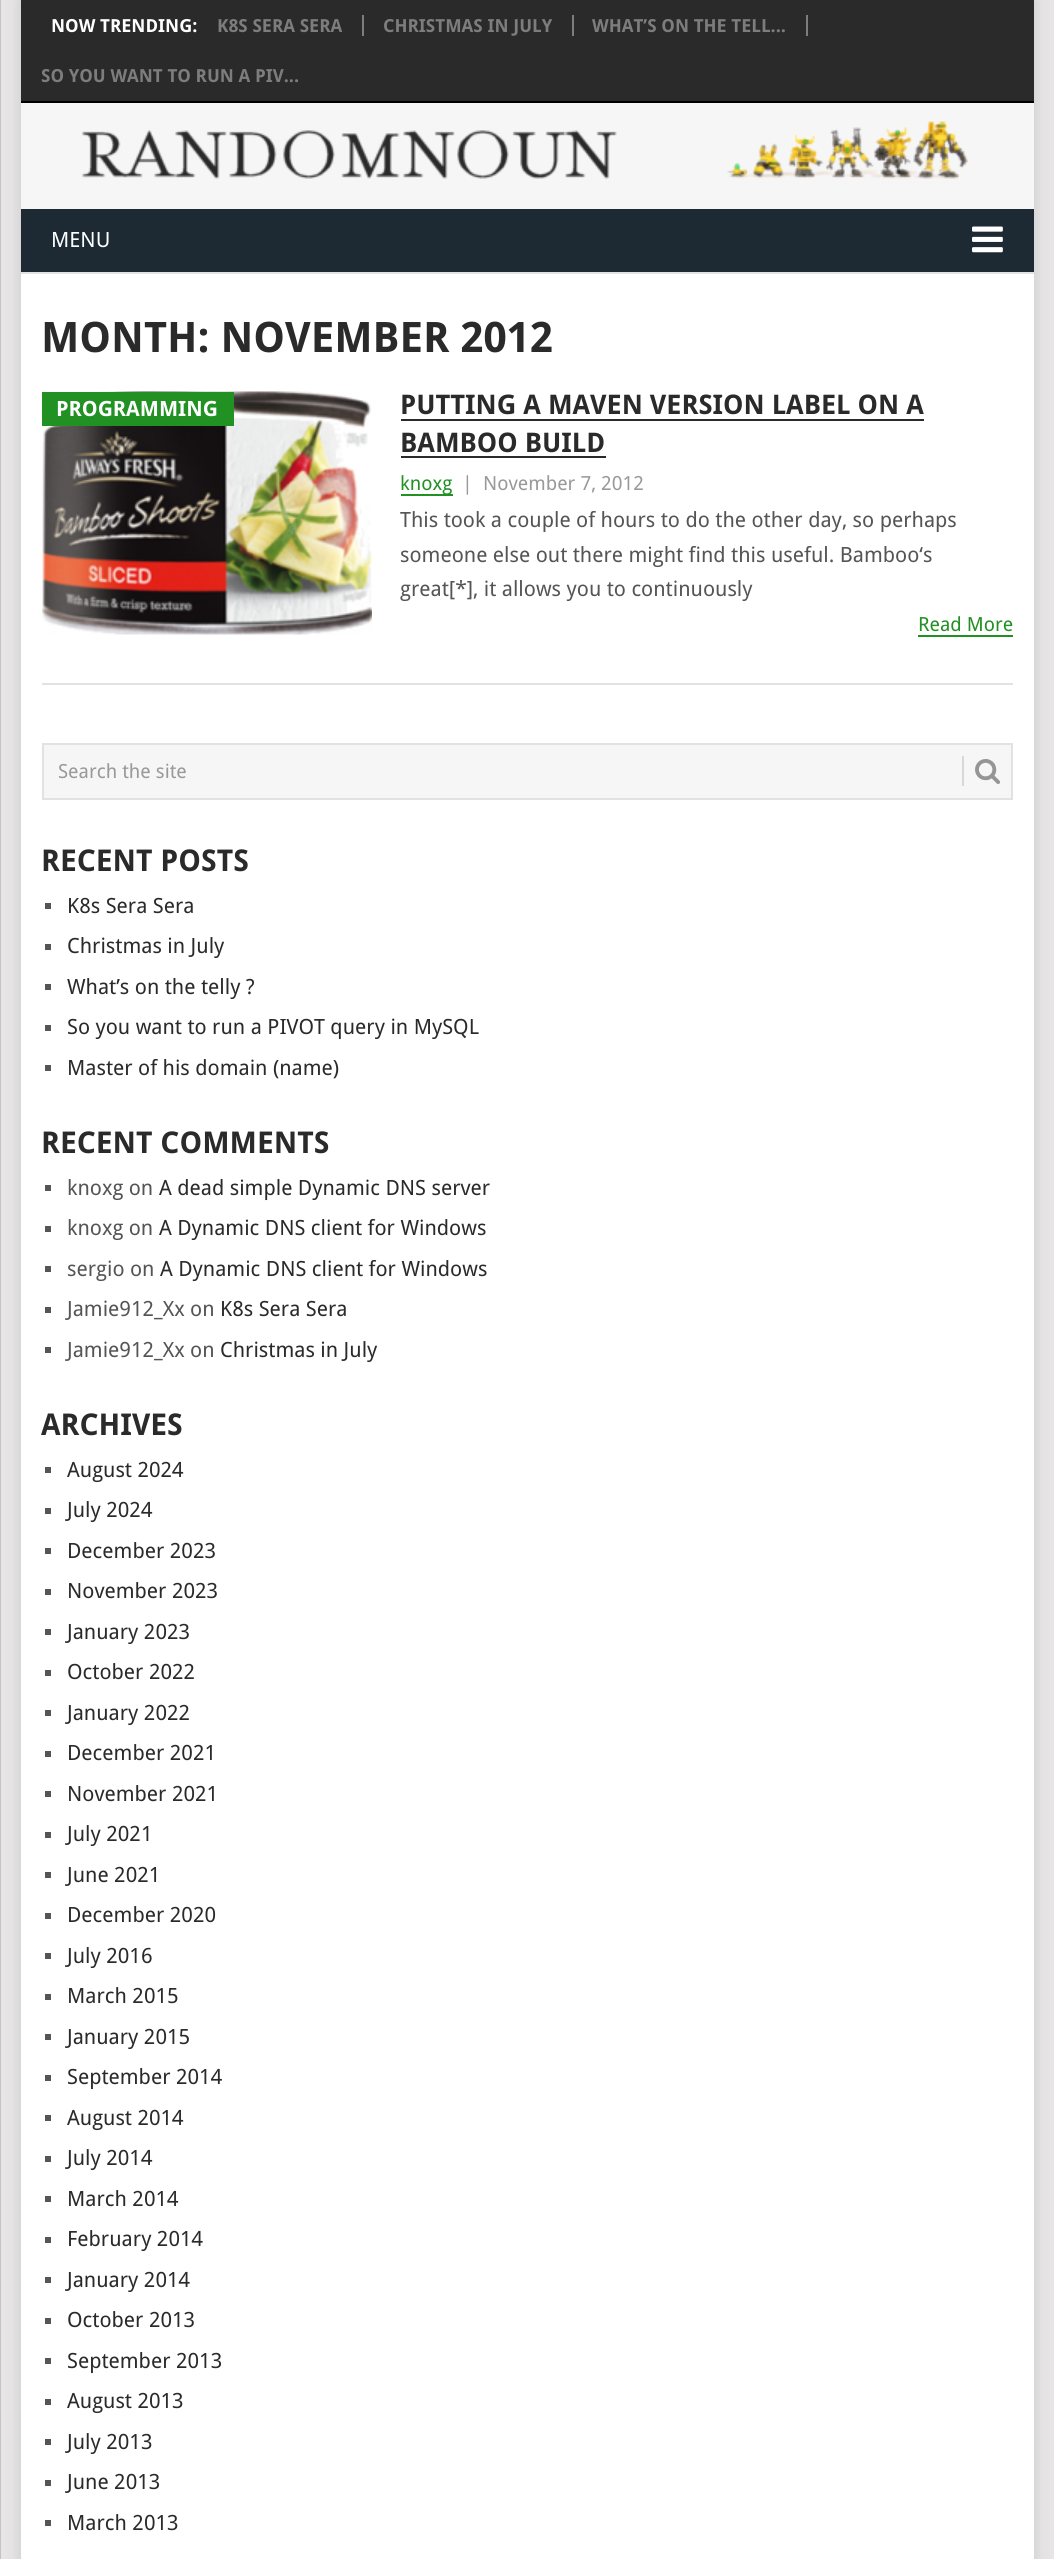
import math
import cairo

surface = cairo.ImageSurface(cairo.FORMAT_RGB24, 1054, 2559)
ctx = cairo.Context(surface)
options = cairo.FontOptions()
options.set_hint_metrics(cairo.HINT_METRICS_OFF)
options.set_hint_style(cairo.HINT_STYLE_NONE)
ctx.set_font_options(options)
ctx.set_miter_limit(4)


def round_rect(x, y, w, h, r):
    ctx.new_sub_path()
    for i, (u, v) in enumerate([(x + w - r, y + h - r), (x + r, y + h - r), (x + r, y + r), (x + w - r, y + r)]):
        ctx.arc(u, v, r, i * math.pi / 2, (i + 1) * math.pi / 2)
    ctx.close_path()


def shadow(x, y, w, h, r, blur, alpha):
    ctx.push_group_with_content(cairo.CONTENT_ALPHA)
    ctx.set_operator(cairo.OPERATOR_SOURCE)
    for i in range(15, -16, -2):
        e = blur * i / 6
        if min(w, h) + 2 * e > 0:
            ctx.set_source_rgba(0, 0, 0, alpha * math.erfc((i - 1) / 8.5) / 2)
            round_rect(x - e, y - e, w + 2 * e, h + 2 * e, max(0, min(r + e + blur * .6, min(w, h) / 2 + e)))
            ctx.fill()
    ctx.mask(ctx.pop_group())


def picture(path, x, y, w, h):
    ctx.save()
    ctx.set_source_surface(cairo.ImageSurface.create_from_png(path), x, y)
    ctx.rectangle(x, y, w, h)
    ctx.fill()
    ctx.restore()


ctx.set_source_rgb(0.906, 0.898, 0.902)
ctx.paint()
ctx.set_source_rgb(0.196, 0.196, 0.196)
shadow(21, 0, 1013, 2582, 0, 7.5, 0.17)
ctx.set_source_rgb(1, 1, 1)
ctx.rectangle(21, 274, 1013, 2285)
ctx.fill()
ctx.set_source_rgb(0.165, 0.165, 0.165)
ctx.rectangle(21, 0, 1013, 101)
ctx.fill()
ctx.set_source_rgb(0, 0, 0)
ctx.rectangle(21, 101, 1013, 2)
ctx.fill()
ctx.select_font_face("Droid Sans", cairo.FONT_SLANT_NORMAL, cairo.FONT_WEIGHT_BOLD)
ctx.set_font_size(18)
ctx.set_source_rgb(1, 1, 1)
ctx.move_to(51, 32)
ctx.show_text("NOW TRENDING:")
ctx.set_source_rgb(0.49, 0.49, 0.49)
ctx.rectangle(362, 15, 2, 21)
ctx.fill()
ctx.move_to(217, 32)
ctx.show_text("K8S SERA SERA")
ctx.rectangle(572, 15, 2, 21)
ctx.fill()
ctx.move_to(383, 32)
ctx.show_text("CHRISTMAS IN JULY")
ctx.rectangle(806, 15, 2, 21)
ctx.fill()
ctx.move_to(592, 32)
ctx.show_text("WHAT’S ON THE TELL...")
ctx.move_to(41, 82)
ctx.show_text("SO YOU WANT TO RUN A PIV...")
ctx.set_source_rgb(0.961, 0.961, 0.961)
ctx.rectangle(21, 103, 1013, 106)
ctx.fill()
ctx.set_source_rgb(0.769, 0.765, 0.765)
ctx.rectangle(0, 0, 1, 2559)
ctx.fill()
picture("img1.png", 82, 120, 886, 59)
ctx.set_source_rgb(0.114, 0.161, 0.2)
ctx.rectangle(21, 209, 1013, 63)
ctx.fill()
ctx.select_font_face("Droid Sans")
ctx.set_font_size(21)
ctx.set_source_rgb(1, 1, 1)
ctx.move_to(51, 247)
ctx.show_text("MENU")
picture("img2.png", 972, 226, 31, 27)
ctx.set_source_rgb(0.886, 0.886, 0.886)
ctx.rectangle(21, 272, 1013, 2)
ctx.fill()
ctx.select_font_face("Droid Sans", cairo.FONT_SLANT_NORMAL, cairo.FONT_WEIGHT_BOLD)
ctx.set_font_size(42)
ctx.set_source_rgb(0.165, 0.165, 0.165)
ctx.move_to(41, 352)
ctx.show_text("MONTH: NOVEMBER 2012")
ctx.set_source_rgb(0.886, 0.886, 0.886)
ctx.rectangle(42, 683, 971, 2)
ctx.fill()
picture("img3.png", 42, 391, 330, 244)
ctx.set_source_rgb(0.133, 0.569, 0.141)
ctx.rectangle(42, 392, 192, 34)
ctx.fill()
ctx.set_font_size(21)
ctx.set_source_rgb(1, 1, 1)
ctx.move_to(56, 416)
ctx.show_text("PROGRAMMING")
ctx.set_font_size(27)
ctx.set_source_rgb(0.165, 0.165, 0.165)
ctx.move_to(400, 414)
ctx.show_text("PUTTING A MAVEN VERSION LABEL ON A")
ctx.rectangle(401, 419, 523, 2)
ctx.fill()
ctx.move_to(400, 452)
ctx.show_text("BAMBOO BUILD")
ctx.rectangle(401, 456, 205, 2)
ctx.fill()
ctx.set_source_rgb(0.133, 0.569, 0.141)
ctx.rectangle(401, 494, 52, 2)
ctx.fill()
ctx.select_font_face("Droid Sans")
ctx.set_font_size(19.5)
ctx.move_to(400, 490)
ctx.show_text("knoxg")
ctx.set_source_rgb(0.6, 0.6, 0.6)
ctx.move_to(462, 490)
ctx.show_text("|")
ctx.move_to(483, 490)
ctx.show_text("November 7, 2012")
ctx.set_font_size(21)
ctx.set_source_rgb(0.333, 0.333, 0.333)
ctx.move_to(400, 527)
ctx.show_text("This took a couple of hours to do the other day, so perhaps")
ctx.move_to(400, 562)
ctx.show_text("someone else out there might find this useful. Bamboo‘s")
ctx.move_to(400, 596)
ctx.show_text("great[*], it allows you to continuously")
ctx.set_font_size(19.5)
ctx.set_source_rgb(0.133, 0.569, 0.141)
ctx.move_to(918, 631)
ctx.show_text("Read More")
ctx.rectangle(918, 635, 95, 2)
ctx.fill()
ctx.set_source_rgb(0.961, 0.961, 0.961)
ctx.rectangle(43, 744, 969, 55)
ctx.fill_preserve()
ctx.set_source_rgb(0.886, 0.886, 0.886)
ctx.stroke()
ctx.set_source_rgb(0.6, 0.6, 0.6)
ctx.move_to(58, 778)
ctx.show_text("Search the site")
ctx.set_source_rgb(0.847, 0.847, 0.847)
ctx.rectangle(962, 756, 2, 30)
ctx.fill()
picture("img4.png", 975, 759, 25, 25)
ctx.select_font_face("Droid Sans", cairo.FONT_SLANT_NORMAL, cairo.FONT_WEIGHT_BOLD)
ctx.set_font_size(30)
ctx.set_source_rgb(0.165, 0.165, 0.165)
ctx.move_to(41, 871)
ctx.show_text("RECENT POSTS")
ctx.set_source_rgb(0.333, 0.333, 0.333)
ctx.rectangle(45, 903, 6, 6)
ctx.fill()
ctx.select_font_face("Droid Sans")
ctx.set_font_size(21)
ctx.set_source_rgb(0.165, 0.165, 0.165)
ctx.move_to(67, 913)
ctx.show_text("K8s Sera Sera")
ctx.set_source_rgb(0.333, 0.333, 0.333)
ctx.rectangle(45, 944, 6, 6)
ctx.fill()
ctx.set_source_rgb(0.165, 0.165, 0.165)
ctx.move_to(67, 953)
ctx.show_text("Christmas in July")
ctx.set_source_rgb(0.333, 0.333, 0.333)
ctx.rectangle(45, 984, 6, 6)
ctx.fill()
ctx.set_source_rgb(0.165, 0.165, 0.165)
ctx.move_to(67, 994)
ctx.show_text("What’s on the telly ?")
ctx.set_source_rgb(0.333, 0.333, 0.333)
ctx.rectangle(45, 1025, 6, 6)
ctx.fill()
ctx.set_source_rgb(0.165, 0.165, 0.165)
ctx.move_to(67, 1034)
ctx.show_text("So you want to run a PIVOT query in MySQL")
ctx.set_source_rgb(0.333, 0.333, 0.333)
ctx.rectangle(45, 1065, 6, 6)
ctx.fill()
ctx.set_source_rgb(0.165, 0.165, 0.165)
ctx.move_to(67, 1075)
ctx.show_text("Master of his domain (name)")
ctx.select_font_face("Droid Sans", cairo.FONT_SLANT_NORMAL, cairo.FONT_WEIGHT_BOLD)
ctx.set_font_size(30)
ctx.move_to(41, 1153)
ctx.show_text("RECENT COMMENTS")
ctx.set_source_rgb(0.333, 0.333, 0.333)
ctx.rectangle(45, 1185, 6, 6)
ctx.fill()
ctx.select_font_face("Droid Sans")
ctx.set_font_size(21)
ctx.move_to(67, 1195)
ctx.show_text("knoxg on")
ctx.set_source_rgb(0.165, 0.165, 0.165)
ctx.move_to(159, 1195)
ctx.show_text("A dead simple Dynamic DNS server")
ctx.set_source_rgb(0.333, 0.333, 0.333)
ctx.rectangle(45, 1226, 6, 6)
ctx.fill()
ctx.move_to(67, 1235)
ctx.show_text("knoxg on")
ctx.set_source_rgb(0.165, 0.165, 0.165)
ctx.move_to(159, 1235)
ctx.show_text("A Dynamic DNS client for Windows")
ctx.set_source_rgb(0.333, 0.333, 0.333)
ctx.rectangle(45, 1266, 6, 6)
ctx.fill()
ctx.move_to(67, 1276)
ctx.show_text("sergio on")
ctx.set_source_rgb(0.165, 0.165, 0.165)
ctx.move_to(160, 1276)
ctx.show_text("A Dynamic DNS client for Windows")
ctx.set_source_rgb(0.333, 0.333, 0.333)
ctx.rectangle(45, 1307, 6, 6)
ctx.fill()
ctx.move_to(67, 1316)
ctx.show_text("Jamie912_Xx on")
ctx.set_source_rgb(0.165, 0.165, 0.165)
ctx.move_to(220, 1316)
ctx.show_text("K8s Sera Sera")
ctx.set_source_rgb(0.333, 0.333, 0.333)
ctx.rectangle(45, 1347, 6, 6)
ctx.fill()
ctx.move_to(67, 1357)
ctx.show_text("Jamie912_Xx on")
ctx.set_source_rgb(0.165, 0.165, 0.165)
ctx.move_to(220, 1357)
ctx.show_text("Christmas in July")
ctx.select_font_face("Droid Sans", cairo.FONT_SLANT_NORMAL, cairo.FONT_WEIGHT_BOLD)
ctx.set_font_size(30)
ctx.move_to(41, 1435)
ctx.show_text("ARCHIVES")
ctx.set_source_rgb(0.333, 0.333, 0.333)
ctx.rectangle(45, 1467, 6, 6)
ctx.fill()
ctx.select_font_face("Droid Sans")
ctx.set_font_size(21)
ctx.set_source_rgb(0.165, 0.165, 0.165)
ctx.move_to(67, 1477)
ctx.show_text("August 2024")
ctx.set_source_rgb(0.333, 0.333, 0.333)
ctx.rectangle(45, 1508, 6, 6)
ctx.fill()
ctx.set_source_rgb(0.165, 0.165, 0.165)
ctx.move_to(67, 1517)
ctx.show_text("July 2024")
ctx.set_source_rgb(0.333, 0.333, 0.333)
ctx.rectangle(45, 1548, 6, 6)
ctx.fill()
ctx.set_source_rgb(0.165, 0.165, 0.165)
ctx.move_to(67, 1558)
ctx.show_text("December 2023")
ctx.set_source_rgb(0.333, 0.333, 0.333)
ctx.rectangle(45, 1589, 6, 6)
ctx.fill()
ctx.set_source_rgb(0.165, 0.165, 0.165)
ctx.move_to(67, 1598)
ctx.show_text("November 2023")
ctx.set_source_rgb(0.333, 0.333, 0.333)
ctx.rectangle(45, 1629, 6, 6)
ctx.fill()
ctx.set_source_rgb(0.165, 0.165, 0.165)
ctx.move_to(67, 1639)
ctx.show_text("January 2023")
ctx.set_source_rgb(0.333, 0.333, 0.333)
ctx.rectangle(45, 1670, 6, 6)
ctx.fill()
ctx.set_source_rgb(0.165, 0.165, 0.165)
ctx.move_to(67, 1679)
ctx.show_text("October 2022")
ctx.set_source_rgb(0.333, 0.333, 0.333)
ctx.rectangle(45, 1710, 6, 6)
ctx.fill()
ctx.set_source_rgb(0.165, 0.165, 0.165)
ctx.move_to(67, 1720)
ctx.show_text("January 2022")
ctx.set_source_rgb(0.333, 0.333, 0.333)
ctx.rectangle(45, 1751, 6, 6)
ctx.fill()
ctx.set_source_rgb(0.165, 0.165, 0.165)
ctx.move_to(67, 1760)
ctx.show_text("December 2021")
ctx.set_source_rgb(0.333, 0.333, 0.333)
ctx.rectangle(45, 1791, 6, 6)
ctx.fill()
ctx.set_source_rgb(0.165, 0.165, 0.165)
ctx.move_to(67, 1801)
ctx.show_text("November 2021")
ctx.set_source_rgb(0.333, 0.333, 0.333)
ctx.rectangle(45, 1832, 6, 6)
ctx.fill()
ctx.set_source_rgb(0.165, 0.165, 0.165)
ctx.move_to(67, 1841)
ctx.show_text("July 2021")
ctx.set_source_rgb(0.333, 0.333, 0.333)
ctx.rectangle(45, 1872, 6, 6)
ctx.fill()
ctx.set_source_rgb(0.165, 0.165, 0.165)
ctx.move_to(67, 1882)
ctx.show_text("June 2021")
ctx.set_source_rgb(0.333, 0.333, 0.333)
ctx.rectangle(45, 1913, 6, 6)
ctx.fill()
ctx.set_source_rgb(0.165, 0.165, 0.165)
ctx.move_to(67, 1922)
ctx.show_text("December 2020")
ctx.set_source_rgb(0.333, 0.333, 0.333)
ctx.rectangle(45, 1953, 6, 6)
ctx.fill()
ctx.set_source_rgb(0.165, 0.165, 0.165)
ctx.move_to(67, 1963)
ctx.show_text("July 2016")
ctx.set_source_rgb(0.333, 0.333, 0.333)
ctx.rectangle(45, 1994, 6, 6)
ctx.fill()
ctx.set_source_rgb(0.165, 0.165, 0.165)
ctx.move_to(67, 2003)
ctx.show_text("March 2015")
ctx.set_source_rgb(0.333, 0.333, 0.333)
ctx.rectangle(45, 2034, 6, 6)
ctx.fill()
ctx.set_source_rgb(0.165, 0.165, 0.165)
ctx.move_to(67, 2044)
ctx.show_text("January 2015")
ctx.set_source_rgb(0.333, 0.333, 0.333)
ctx.rectangle(45, 2075, 6, 6)
ctx.fill()
ctx.set_source_rgb(0.165, 0.165, 0.165)
ctx.move_to(67, 2084)
ctx.show_text("September 2014")
ctx.set_source_rgb(0.333, 0.333, 0.333)
ctx.rectangle(45, 2115, 6, 6)
ctx.fill()
ctx.set_source_rgb(0.165, 0.165, 0.165)
ctx.move_to(67, 2125)
ctx.show_text("August 2014")
ctx.set_source_rgb(0.333, 0.333, 0.333)
ctx.rectangle(45, 2156, 6, 6)
ctx.fill()
ctx.set_source_rgb(0.165, 0.165, 0.165)
ctx.move_to(67, 2165)
ctx.show_text("July 2014")
ctx.set_source_rgb(0.333, 0.333, 0.333)
ctx.rectangle(45, 2196, 6, 6)
ctx.fill()
ctx.set_source_rgb(0.165, 0.165, 0.165)
ctx.move_to(67, 2206)
ctx.show_text("March 2014")
ctx.set_source_rgb(0.333, 0.333, 0.333)
ctx.rectangle(45, 2237, 6, 6)
ctx.fill()
ctx.set_source_rgb(0.165, 0.165, 0.165)
ctx.move_to(67, 2246)
ctx.show_text("February 2014")
ctx.set_source_rgb(0.333, 0.333, 0.333)
ctx.rectangle(45, 2277, 6, 6)
ctx.fill()
ctx.set_source_rgb(0.165, 0.165, 0.165)
ctx.move_to(67, 2287)
ctx.show_text("January 2014")
ctx.set_source_rgb(0.333, 0.333, 0.333)
ctx.rectangle(45, 2318, 6, 6)
ctx.fill()
ctx.set_source_rgb(0.165, 0.165, 0.165)
ctx.move_to(67, 2327)
ctx.show_text("October 2013")
ctx.set_source_rgb(0.333, 0.333, 0.333)
ctx.rectangle(45, 2358, 6, 6)
ctx.fill()
ctx.set_source_rgb(0.165, 0.165, 0.165)
ctx.move_to(67, 2368)
ctx.show_text("September 2013")
ctx.set_source_rgb(0.333, 0.333, 0.333)
ctx.rectangle(45, 2399, 6, 6)
ctx.fill()
ctx.set_source_rgb(0.165, 0.165, 0.165)
ctx.move_to(67, 2408)
ctx.show_text("August 2013")
ctx.set_source_rgb(0.333, 0.333, 0.333)
ctx.rectangle(45, 2439, 6, 6)
ctx.fill()
ctx.set_source_rgb(0.165, 0.165, 0.165)
ctx.move_to(67, 2449)
ctx.show_text("July 2013")
ctx.set_source_rgb(0.333, 0.333, 0.333)
ctx.rectangle(45, 2480, 6, 6)
ctx.fill()
ctx.set_source_rgb(0.165, 0.165, 0.165)
ctx.move_to(67, 2489)
ctx.show_text("June 2013")
ctx.set_source_rgb(0.333, 0.333, 0.333)
ctx.rectangle(45, 2520, 6, 6)
ctx.fill()
ctx.set_source_rgb(0.165, 0.165, 0.165)
ctx.move_to(67, 2530)
ctx.show_text("March 2013")
surface.write_to_png("page.png")
